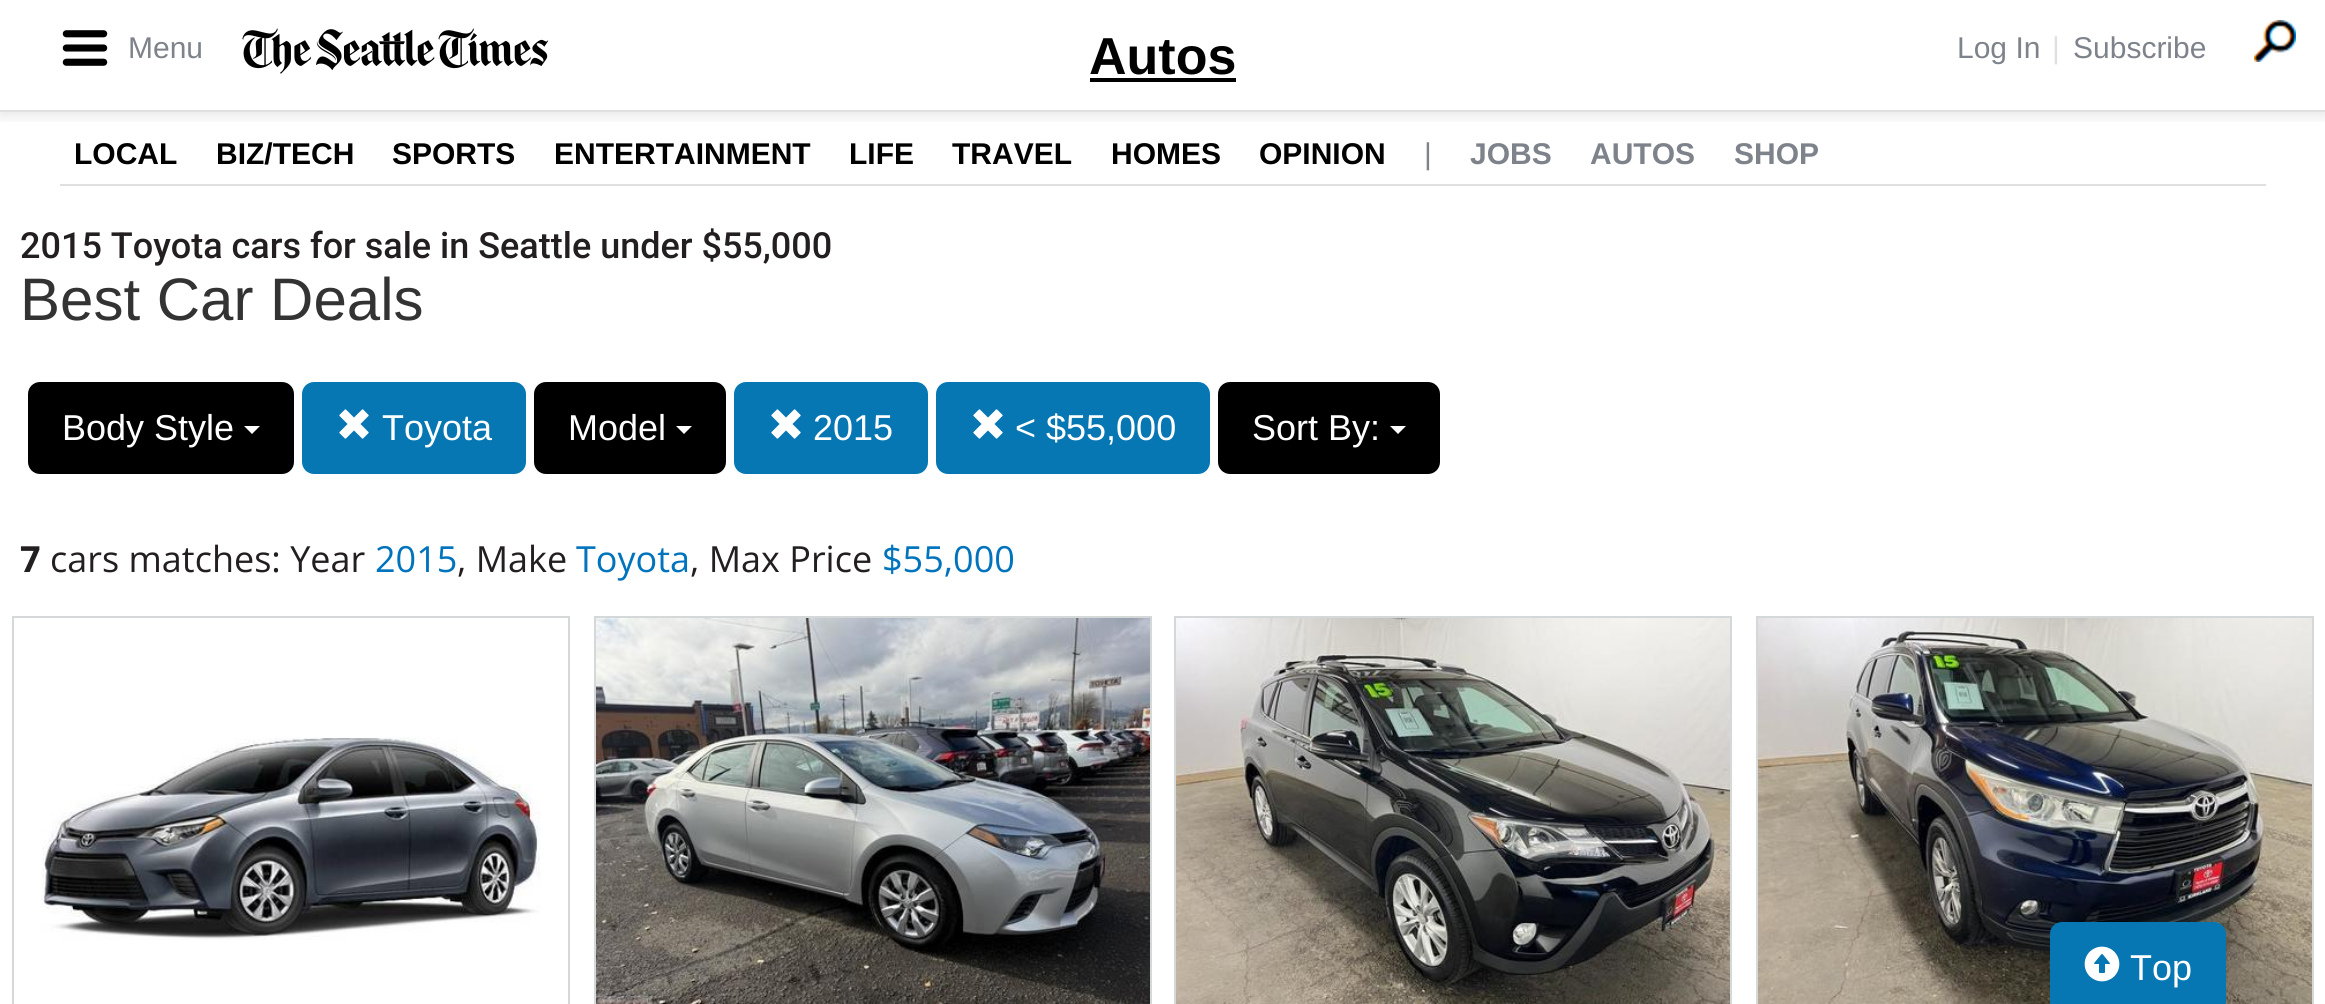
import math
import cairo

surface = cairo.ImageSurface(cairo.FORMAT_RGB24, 2325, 1004)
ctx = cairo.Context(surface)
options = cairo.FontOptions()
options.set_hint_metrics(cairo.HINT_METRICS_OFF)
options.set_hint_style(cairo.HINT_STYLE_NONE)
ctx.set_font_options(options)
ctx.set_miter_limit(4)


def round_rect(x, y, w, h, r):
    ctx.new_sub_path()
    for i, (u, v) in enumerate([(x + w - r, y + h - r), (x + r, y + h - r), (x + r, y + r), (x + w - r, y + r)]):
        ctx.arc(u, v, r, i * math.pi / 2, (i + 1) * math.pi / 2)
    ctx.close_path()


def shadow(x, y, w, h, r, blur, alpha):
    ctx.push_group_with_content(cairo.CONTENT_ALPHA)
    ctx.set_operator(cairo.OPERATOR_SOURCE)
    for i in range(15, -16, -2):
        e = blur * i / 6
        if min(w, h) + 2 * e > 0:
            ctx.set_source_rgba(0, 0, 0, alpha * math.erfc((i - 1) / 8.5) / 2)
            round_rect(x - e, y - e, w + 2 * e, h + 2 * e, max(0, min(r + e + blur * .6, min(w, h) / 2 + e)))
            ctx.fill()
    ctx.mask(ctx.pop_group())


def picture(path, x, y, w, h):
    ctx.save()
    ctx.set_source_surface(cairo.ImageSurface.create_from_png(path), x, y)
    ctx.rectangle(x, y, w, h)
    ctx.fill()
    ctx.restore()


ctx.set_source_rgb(1, 1, 1)
ctx.paint()
ctx.save()
ctx.rectangle(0, 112, 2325, 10)
ctx.clip()
ctx.set_source_rgb(0, 0, 0)
shadow(0, 4, 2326, 112, 0, 7, 0.1)
ctx.restore()
ctx.set_source_rgb(0.878, 0.878, 0.878)
ctx.rectangle(0, 110, 2325, 2)
ctx.fill()
picture("img1.png", 62, 30, 46, 36)
ctx.select_font_face("Liberation Sans")
ctx.set_font_size(30)
ctx.set_source_rgb(0.494, 0.514, 0.545)
ctx.move_to(128, 58)
ctx.show_text("Menu")
picture("img2.png", 242, 28, 307, 46)
ctx.move_to(1957, 58)
ctx.show_text("Log In")
ctx.set_source_rgb(0.878, 0.878, 0.878)
ctx.move_to(2052, 58)
ctx.show_text("|")
ctx.set_source_rgb(0.494, 0.514, 0.545)
ctx.move_to(2073, 58)
ctx.show_text("Subscribe")
picture("img3.png", 2254, 20, 42, 42)
ctx.select_font_face("Liberation Sans", cairo.FONT_SLANT_NORMAL, cairo.FONT_WEIGHT_BOLD)
ctx.set_font_size(52)
ctx.set_source_rgb(0, 0, 0)
ctx.move_to(1089, 74)
ctx.show_text("Autos")
ctx.rectangle(1090, 78, 146, 4)
ctx.fill()
ctx.set_source_rgb(0.878, 0.878, 0.878)
ctx.rectangle(60, 184, 2206, 2)
ctx.fill()
ctx.set_font_size(30)
ctx.set_source_rgb(0, 0, 0)
ctx.move_to(74, 164)
ctx.show_text("LOCAL")
ctx.move_to(216, 164)
ctx.show_text("BIZ/TECH")
ctx.move_to(392, 164)
ctx.show_text("SPORTS")
ctx.move_to(554, 164)
ctx.show_text("ENTERTAINMENT")
ctx.move_to(849, 164)
ctx.show_text("LIFE")
ctx.move_to(952, 164)
ctx.show_text("TRAVEL")
ctx.move_to(1111, 164)
ctx.show_text("HOMES")
ctx.move_to(1259, 164)
ctx.show_text("OPINION")
ctx.select_font_face("Liberation Sans")
ctx.set_source_rgb(0.494, 0.514, 0.545)
ctx.move_to(1424, 164)
ctx.show_text("|")
ctx.select_font_face("Liberation Sans", cairo.FONT_SLANT_NORMAL, cairo.FONT_WEIGHT_BOLD)
ctx.move_to(1470, 164)
ctx.show_text("JOBS")
ctx.move_to(1590, 164)
ctx.show_text("AUTOS")
ctx.move_to(1734, 164)
ctx.show_text("SHOP")
ctx.select_font_face("Roboto Medium")
ctx.set_font_size(36)
ctx.set_source_rgb(0.137, 0.122, 0.125)
ctx.move_to(20, 258)
ctx.show_text("2015 Toyota cars for sale in Seattle under $55,000")
ctx.select_font_face("Liberation Sans")
ctx.set_font_size(60)
ctx.set_source_rgb(0.2, 0.2, 0.2)
ctx.move_to(20, 320)
ctx.show_text("Best Car Deals")
ctx.set_source_rgb(0, 0, 0)
round_rect(28, 382, 266, 92, 12)
ctx.fill()
ctx.set_font_size(36)
ctx.set_source_rgb(1, 1, 1)
ctx.move_to(62, 440)
ctx.show_text("Body Style")
ctx.new_path()
ctx.move_to(244, 426)
ctx.line_to(260, 426)
ctx.line_to(252, 434)
ctx.close_path()
ctx.fill()
ctx.set_source_rgb(0.027, 0.467, 0.702)
round_rect(302, 382, 224, 92, 12)
ctx.fill()
picture("img4.png", 339, 409, 30, 30)
ctx.set_source_rgb(1, 1, 1)
ctx.move_to(382, 440)
ctx.show_text("Toyota")
ctx.set_source_rgb(0, 0, 0)
round_rect(534, 382, 192, 92, 12)
ctx.fill()
ctx.set_source_rgb(1, 1, 1)
ctx.move_to(568, 440)
ctx.show_text("Model")
ctx.new_path()
ctx.move_to(676, 426)
ctx.line_to(692, 426)
ctx.line_to(684, 434)
ctx.close_path()
ctx.fill()
ctx.set_source_rgb(0.027, 0.467, 0.702)
round_rect(734, 382, 194, 92, 12)
ctx.fill()
picture("img4.png", 771, 409, 30, 30)
ctx.set_source_rgb(1, 1, 1)
ctx.move_to(813, 440)
ctx.show_text("2015")
ctx.set_source_rgb(0.027, 0.467, 0.702)
round_rect(936, 382, 274, 92, 12)
ctx.fill()
picture("img4.png", 973, 409, 30, 30)
ctx.set_source_rgb(1, 1, 1)
ctx.move_to(1015, 440)
ctx.show_text("< $55,000")
ctx.set_source_rgb(0, 0, 0)
round_rect(1218, 382, 222, 92, 12)
ctx.fill()
ctx.set_source_rgb(1, 1, 1)
ctx.move_to(1252, 440)
ctx.show_text("Sort By:")
ctx.new_path()
ctx.move_to(1390, 426)
ctx.line_to(1406, 426)
ctx.line_to(1398, 434)
ctx.close_path()
ctx.fill()
ctx.select_font_face("Open Sans", cairo.FONT_SLANT_NORMAL, cairo.FONT_WEIGHT_BOLD)
ctx.set_source_rgb(0.137, 0.122, 0.125)
ctx.move_to(20, 572)
ctx.show_text("7")
ctx.select_font_face("Open Sans")
ctx.move_to(50, 572)
ctx.show_text("cars matches: Year")
ctx.set_source_rgb(0, 0.451, 0.741)
ctx.move_to(375, 572)
ctx.show_text("2015")
ctx.set_source_rgb(0.137, 0.122, 0.125)
ctx.move_to(457, 572)
ctx.show_text(", Make")
ctx.set_source_rgb(0, 0.451, 0.741)
ctx.move_to(576, 572)
ctx.show_text("Toyota")
ctx.set_source_rgb(0.137, 0.122, 0.125)
ctx.move_to(690, 572)
ctx.show_text(", Max Price")
ctx.set_source_rgb(0, 0.451, 0.741)
ctx.move_to(882, 572)
ctx.show_text("$55,000")
ctx.rectangle(13, 617, 556, 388)
ctx.set_source_rgb(0.831, 0.847, 0.851)
ctx.stroke()
picture("img5.png", 41, 737, 500, 203)
ctx.rectangle(595, 617, 556, 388)
ctx.stroke()
picture("img6.png", 596, 618, 554, 386)
ctx.rectangle(1175, 617, 556, 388)
ctx.stroke()
picture("img7.png", 1176, 618, 554, 386)
ctx.rectangle(1757, 617, 556, 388)
ctx.stroke()
picture("img8.png", 1758, 618, 554, 386)
ctx.set_source_rgb(0.027, 0.467, 0.702)
round_rect(2051, 923, 174, 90, 11)
ctx.fill_preserve()
ctx.stroke()
picture("img9.png", 2084, 946, 36, 36)
ctx.select_font_face("Liberation Sans")
ctx.set_source_rgb(1, 1, 1)
ctx.move_to(2130, 980)
ctx.show_text("Top")
surface.write_to_png("page.png")
